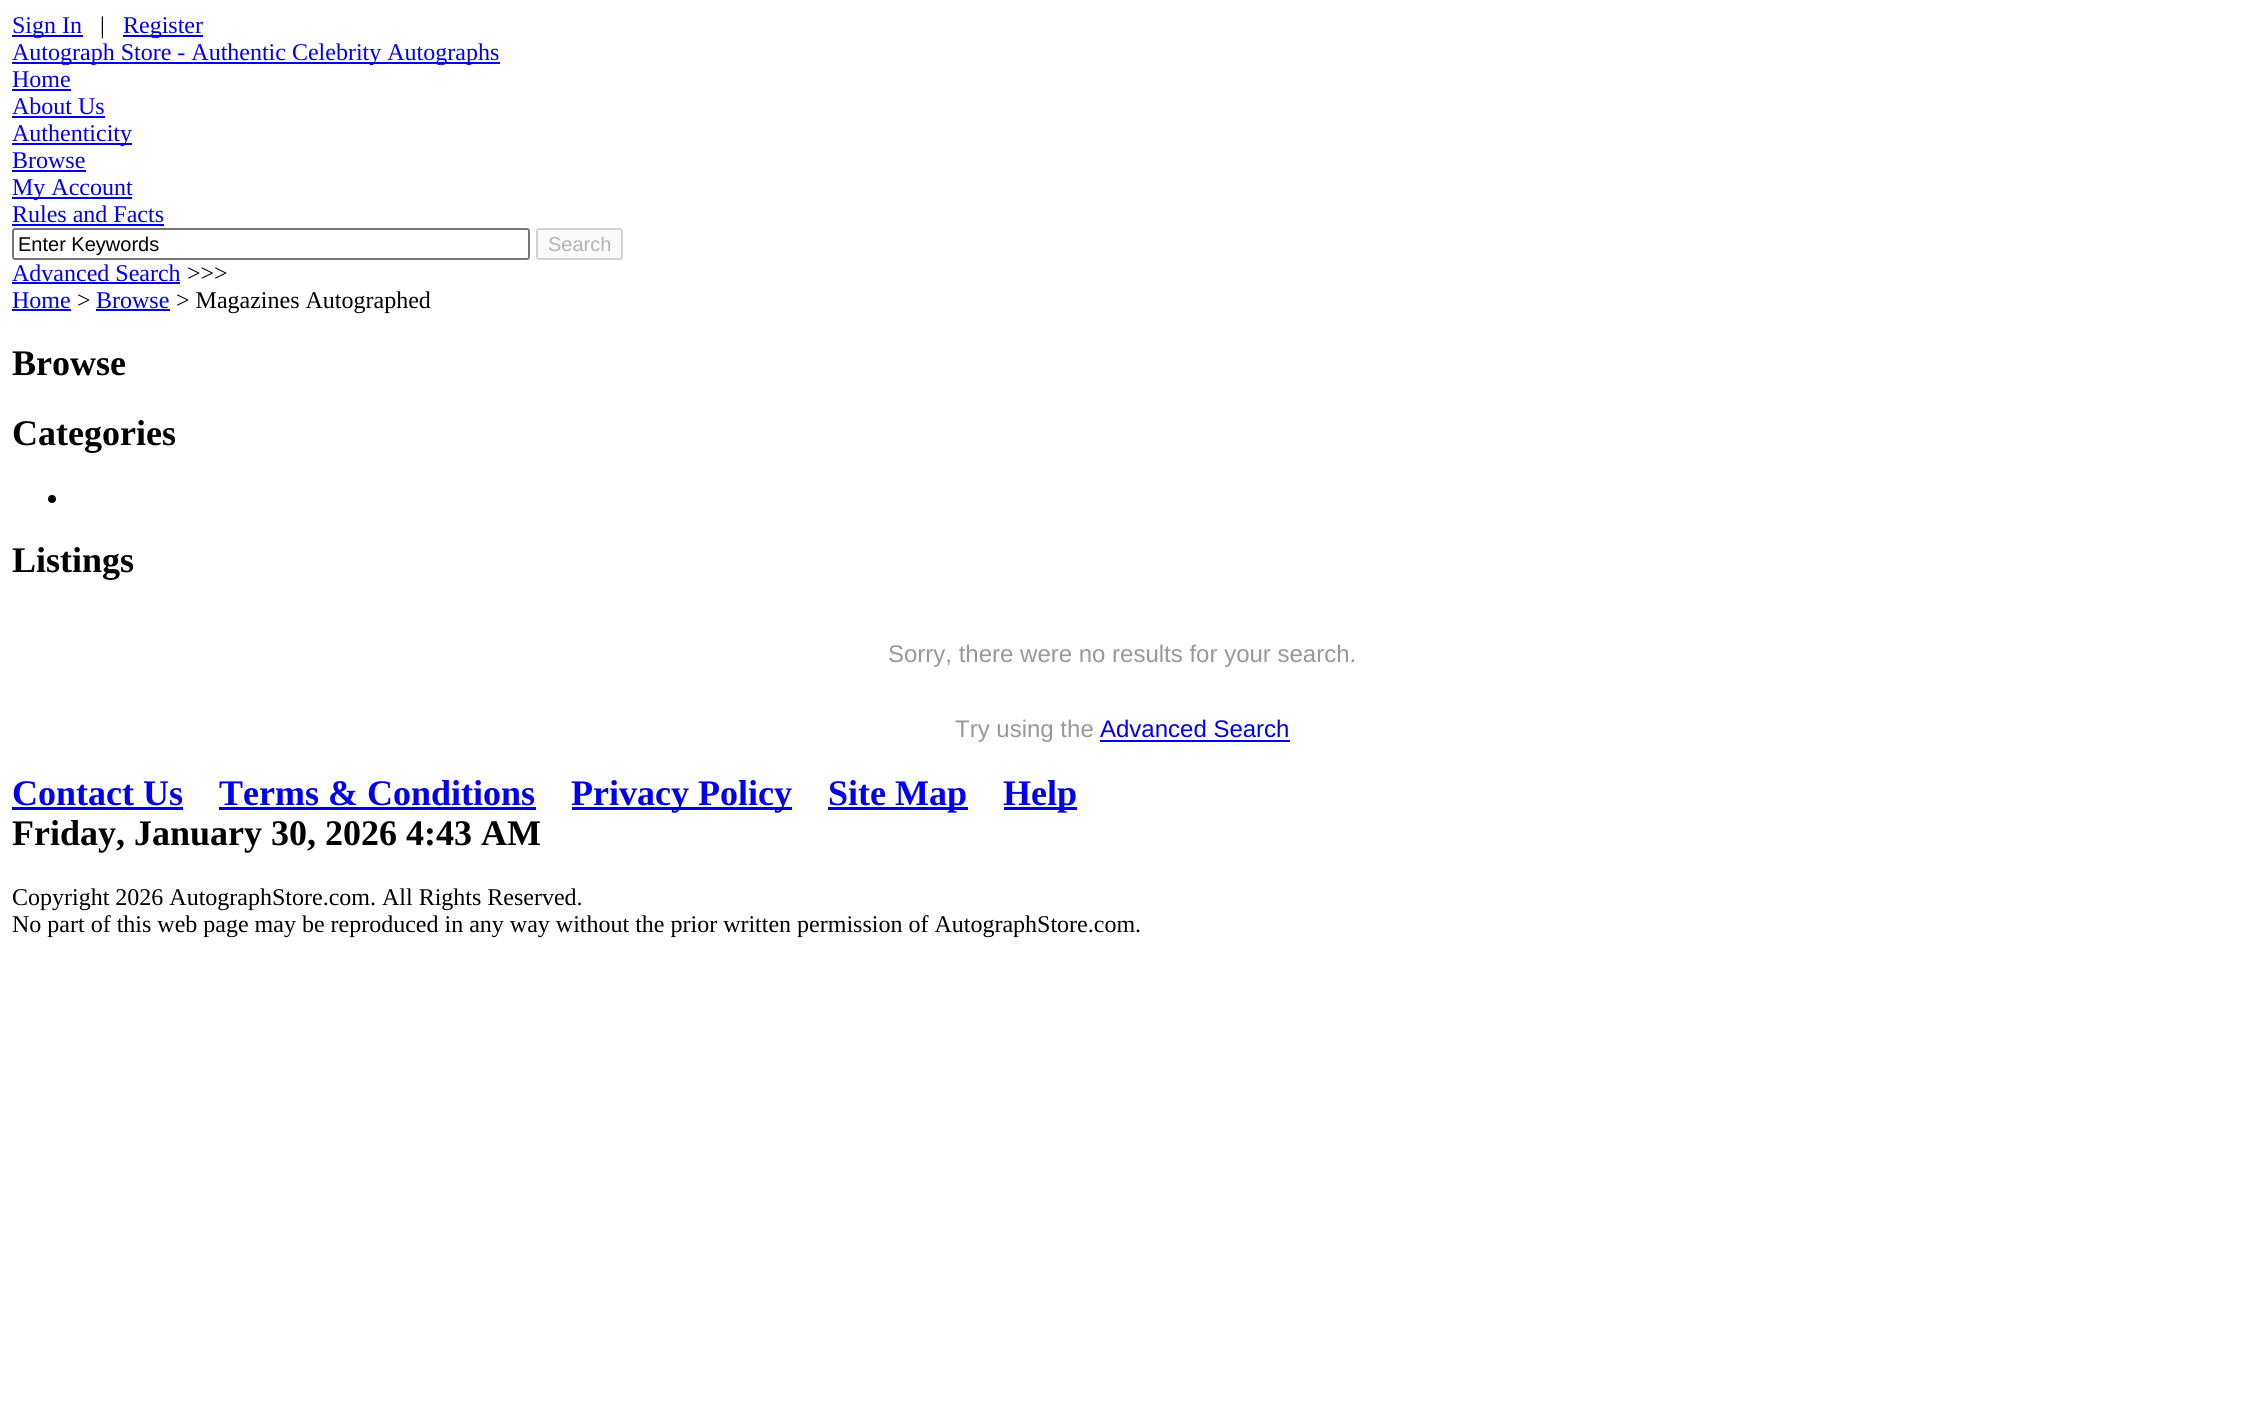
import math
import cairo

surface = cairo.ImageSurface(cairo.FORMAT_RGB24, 2244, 1418)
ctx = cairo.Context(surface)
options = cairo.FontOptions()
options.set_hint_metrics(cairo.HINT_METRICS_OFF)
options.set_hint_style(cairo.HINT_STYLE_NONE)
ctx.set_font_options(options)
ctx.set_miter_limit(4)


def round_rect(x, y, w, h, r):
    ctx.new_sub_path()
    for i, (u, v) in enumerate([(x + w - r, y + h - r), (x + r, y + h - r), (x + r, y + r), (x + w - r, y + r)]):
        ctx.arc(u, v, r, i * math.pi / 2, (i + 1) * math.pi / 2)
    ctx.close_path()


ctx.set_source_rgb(1, 1, 1)
ctx.paint()
ctx.set_source_rgb(0, 0, 0.933)
ctx.rectangle(12, 35, 71, 2)
ctx.fill()
ctx.select_font_face("Liberation Serif")
ctx.set_font_size(24)
ctx.move_to(12, 33)
ctx.show_text("Sign In")
ctx.set_source_rgb(0, 0, 0)
ctx.move_to(100, 33)
ctx.show_text("|")
ctx.set_source_rgb(0, 0, 0.933)
ctx.rectangle(123, 35, 80, 2)
ctx.fill()
ctx.move_to(123, 33)
ctx.show_text("Register")
ctx.rectangle(12, 62, 488, 2)
ctx.fill()
ctx.move_to(12, 60)
ctx.show_text("Autograph Store - Authentic Celebrity Autographs")
ctx.move_to(12, 87)
ctx.show_text("Home")
ctx.rectangle(12, 89, 59, 2)
ctx.fill()
ctx.move_to(12, 114)
ctx.show_text("About Us")
ctx.rectangle(12, 116, 93, 2)
ctx.fill()
ctx.rectangle(12, 143, 120, 2)
ctx.fill()
ctx.move_to(12, 141)
ctx.show_text("Authenticity")
ctx.move_to(12, 168)
ctx.show_text("Browse")
ctx.rectangle(12, 170, 74, 2)
ctx.fill()
ctx.rectangle(12, 197, 120, 2)
ctx.fill()
ctx.move_to(12, 195)
ctx.show_text("My Account")
ctx.move_to(12, 222)
ctx.show_text("Rules and Facts")
ctx.rectangle(12, 224, 152, 2)
ctx.fill()
round_rect(13, 229, 516, 30, 2)
ctx.set_source_rgb(0.463, 0.463, 0.463)
ctx.stroke()
ctx.select_font_face("Liberation Sans")
ctx.set_font_size(20)
ctx.set_source_rgb(0, 0, 0)
ctx.move_to(18, 251)
ctx.show_text("Enter Keywords")
ctx.set_source_rgb(0.98, 0.98, 0.98)
round_rect(537, 229, 85, 30, 2)
ctx.fill_preserve()
ctx.set_source_rgb(0.824, 0.824, 0.824)
ctx.stroke()
ctx.set_source_rgb(0.706, 0.706, 0.706)
ctx.move_to(548, 251)
ctx.show_text("Search")
ctx.select_font_face("Liberation Serif")
ctx.set_font_size(24)
ctx.set_source_rgb(0, 0, 0.933)
ctx.move_to(12, 281)
ctx.show_text("Advanced Search")
ctx.rectangle(12, 282, 168, 2)
ctx.fill()
ctx.set_source_rgb(0, 0, 0)
ctx.move_to(187, 281)
ctx.show_text(">>>")
ctx.set_source_rgb(0, 0, 0.933)
ctx.move_to(12, 308)
ctx.show_text("Home")
ctx.rectangle(12, 309, 59, 2)
ctx.fill()
ctx.set_source_rgb(0, 0, 0)
ctx.move_to(77, 308)
ctx.show_text(">")
ctx.set_source_rgb(0, 0, 0.933)
ctx.move_to(96, 308)
ctx.show_text("Browse")
ctx.rectangle(96, 309, 74, 2)
ctx.fill()
ctx.set_source_rgb(0, 0, 0)
ctx.move_to(176, 308)
ctx.show_text("> Magazines Autographed")
ctx.select_font_face("Liberation Serif", cairo.FONT_SLANT_NORMAL, cairo.FONT_WEIGHT_BOLD)
ctx.set_font_size(36)
ctx.move_to(12, 375)
ctx.show_text("Browse")
ctx.move_to(12, 445)
ctx.show_text("Categories")
ctx.new_path()
ctx.arc(52, 499, 4, 0, 2 * math.pi)
ctx.fill()
ctx.move_to(12, 572)
ctx.show_text("Listings")
ctx.select_font_face("Liberation Sans")
ctx.set_font_size(24)
ctx.set_source_rgb(0.6, 0.6, 0.6)
ctx.move_to(888, 662)
ctx.show_text("Sorry, there were no results for your search.")
ctx.move_to(955, 737)
ctx.show_text("Try using the")
ctx.set_source_rgb(0, 0, 0.933)
ctx.move_to(1100, 737)
ctx.show_text("Advanced Search")
ctx.rectangle(1100, 740, 190, 2)
ctx.fill()
ctx.select_font_face("Liberation Serif", cairo.FONT_SLANT_NORMAL, cairo.FONT_WEIGHT_BOLD)
ctx.set_font_size(36)
ctx.move_to(12, 805)
ctx.show_text("Contact Us")
ctx.rectangle(12, 807, 171, 3)
ctx.fill()
ctx.move_to(219, 805)
ctx.show_text("Terms & Conditions")
ctx.rectangle(219, 807, 317, 3)
ctx.fill()
ctx.rectangle(572, 807, 220, 3)
ctx.fill()
ctx.move_to(571, 805)
ctx.show_text("Privacy Policy")
ctx.rectangle(828, 807, 140, 3)
ctx.fill()
ctx.move_to(828, 805)
ctx.show_text("Site Map")
ctx.rectangle(1004, 807, 73, 3)
ctx.fill()
ctx.move_to(1003, 805)
ctx.show_text("Help")
ctx.set_source_rgb(0, 0, 0)
ctx.move_to(12, 845)
ctx.show_text("Friday, January 30, 2026 4:43 AM")
ctx.select_font_face("Liberation Serif")
ctx.set_font_size(24)
ctx.move_to(12, 905)
ctx.show_text("Copyright 2026 AutographStore.com. All Rights Reserved.")
ctx.move_to(12, 932)
ctx.show_text("No part of this web page may be reproduced in any way without the prior written permission of AutographStore.com.")
surface.write_to_png("page.png")
